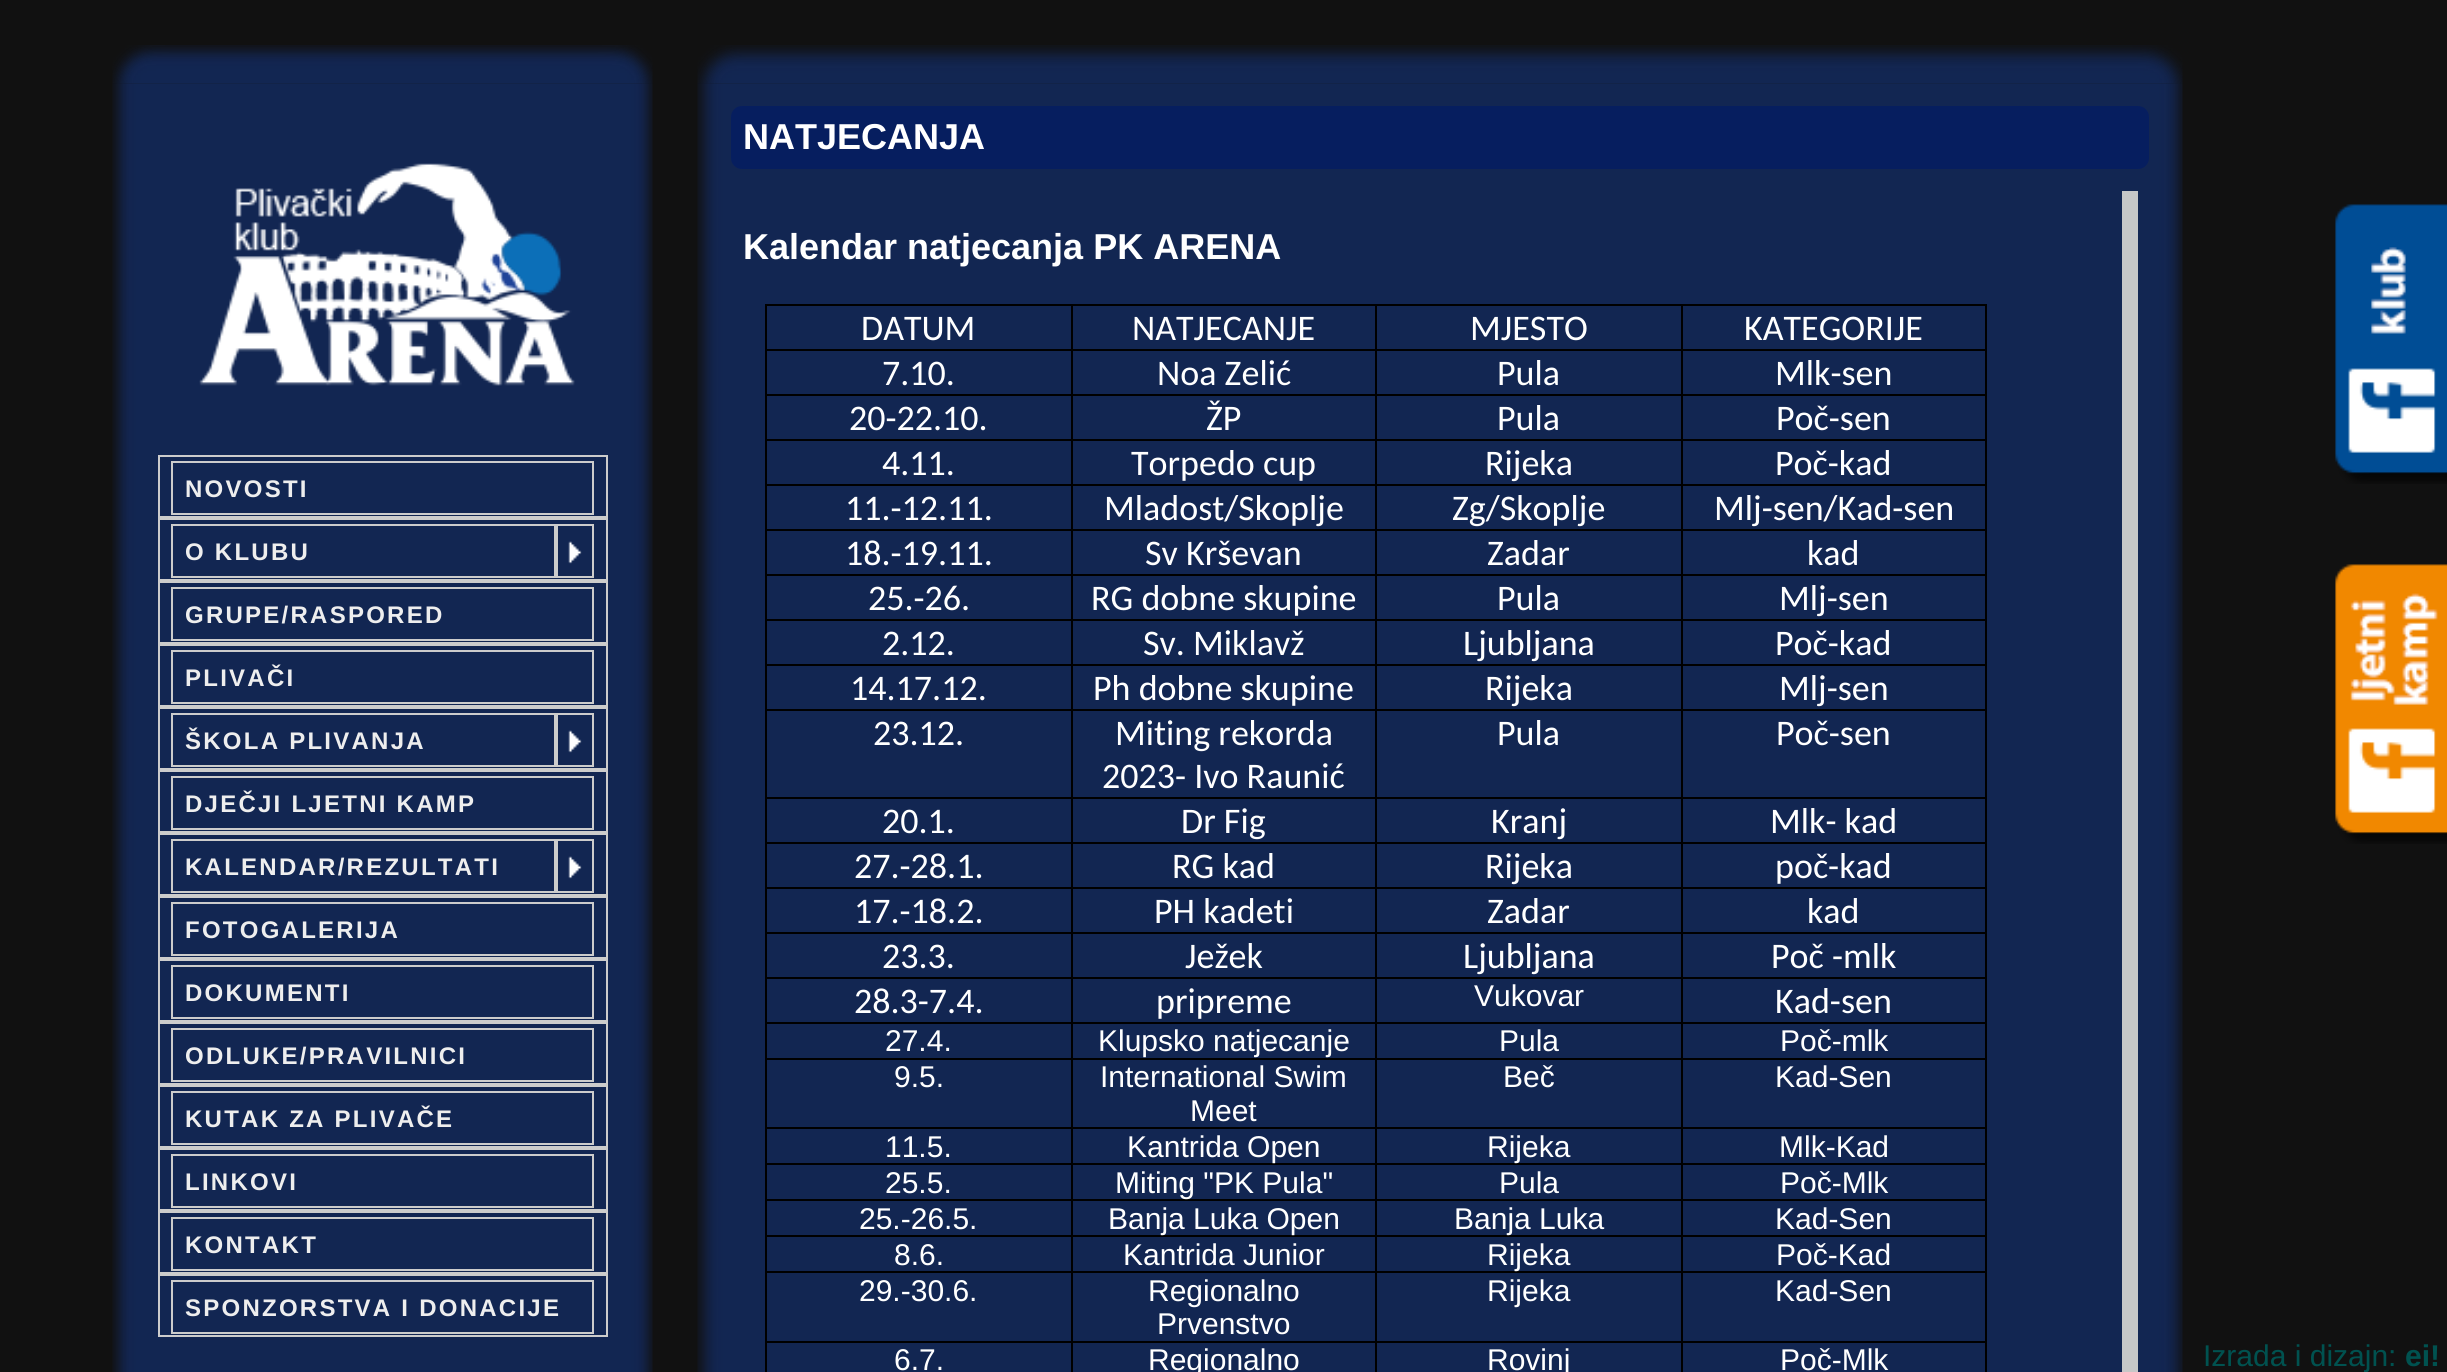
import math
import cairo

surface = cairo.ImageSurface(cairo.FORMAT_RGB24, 2447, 1372)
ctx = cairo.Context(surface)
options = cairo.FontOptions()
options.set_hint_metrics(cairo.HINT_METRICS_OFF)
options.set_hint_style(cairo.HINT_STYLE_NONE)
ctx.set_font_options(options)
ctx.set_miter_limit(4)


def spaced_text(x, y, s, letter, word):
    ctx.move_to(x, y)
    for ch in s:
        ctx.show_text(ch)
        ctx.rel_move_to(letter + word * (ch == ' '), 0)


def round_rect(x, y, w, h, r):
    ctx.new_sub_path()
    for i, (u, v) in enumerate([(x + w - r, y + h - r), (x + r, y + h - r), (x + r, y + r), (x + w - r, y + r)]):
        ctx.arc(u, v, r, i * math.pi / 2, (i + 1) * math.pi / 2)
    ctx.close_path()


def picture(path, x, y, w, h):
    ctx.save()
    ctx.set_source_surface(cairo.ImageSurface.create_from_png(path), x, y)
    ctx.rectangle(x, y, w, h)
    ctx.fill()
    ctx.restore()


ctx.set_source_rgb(0.067, 0.067, 0.067)
ctx.paint()
picture("img1.png", 112, 45, 541, 39)
picture("img2.png", 112, 83, 541, 1289)
picture("img3.png", 199, 163, 376, 223)
ctx.rectangle(159, 456, 448, 61)
ctx.set_source_rgb(0.8, 0.8, 0.8)
ctx.stroke()
ctx.rectangle(172, 462, 421, 52)
ctx.stroke()
ctx.select_font_face("Liberation Sans", cairo.FONT_SLANT_NORMAL, cairo.FONT_WEIGHT_BOLD)
ctx.set_font_size(24)
ctx.set_source_rgb(0.933, 0.933, 0.933)
spaced_text(185, 497, "NOVOSTI", 2.25, 0)
ctx.rectangle(159, 519, 448, 61)
ctx.set_source_rgb(0.8, 0.8, 0.8)
ctx.stroke()
ctx.rectangle(172, 525, 383, 52)
ctx.stroke()
ctx.set_source_rgb(0.933, 0.933, 0.933)
spaced_text(185, 560, "O KLUBU", 2.25, 0)
ctx.rectangle(557, 525, 36, 52)
ctx.set_source_rgb(0.8, 0.8, 0.8)
ctx.stroke()
picture("img4.png", 568, 541, 14, 23)
ctx.rectangle(159, 582, 448, 61)
ctx.stroke()
ctx.rectangle(172, 588, 421, 52)
ctx.stroke()
ctx.set_source_rgb(0.933, 0.933, 0.933)
spaced_text(185, 623, "GRUPE/RASPORED", 2.25, 0)
ctx.rectangle(159, 645, 448, 61)
ctx.set_source_rgb(0.8, 0.8, 0.8)
ctx.stroke()
ctx.rectangle(172, 651, 421, 52)
ctx.stroke()
ctx.set_source_rgb(0.933, 0.933, 0.933)
spaced_text(185, 686, "PLIVAČI", 2.25, 0)
ctx.rectangle(159, 708, 448, 61)
ctx.set_source_rgb(0.8, 0.8, 0.8)
ctx.stroke()
ctx.rectangle(172, 714, 383, 52)
ctx.stroke()
ctx.set_source_rgb(0.933, 0.933, 0.933)
spaced_text(185, 749, "ŠKOLA PLIVANJA", 2.25, 0)
ctx.rectangle(557, 714, 36, 52)
ctx.set_source_rgb(0.8, 0.8, 0.8)
ctx.stroke()
picture("img4.png", 568, 730, 14, 23)
ctx.rectangle(159, 771, 448, 61)
ctx.stroke()
ctx.rectangle(172, 777, 421, 52)
ctx.stroke()
ctx.set_source_rgb(0.933, 0.933, 0.933)
spaced_text(185, 812, "DJEČJI LJETNI KAMP", 2.25, 0)
ctx.rectangle(159, 834, 448, 61)
ctx.set_source_rgb(0.8, 0.8, 0.8)
ctx.stroke()
ctx.rectangle(172, 840, 383, 52)
ctx.stroke()
ctx.set_source_rgb(0.933, 0.933, 0.933)
spaced_text(185, 875, "KALENDAR/REZULTATI", 2.25, 0)
ctx.rectangle(557, 840, 36, 52)
ctx.set_source_rgb(0.8, 0.8, 0.8)
ctx.stroke()
picture("img4.png", 568, 856, 14, 23)
ctx.rectangle(159, 897, 448, 61)
ctx.stroke()
ctx.rectangle(172, 903, 421, 52)
ctx.stroke()
ctx.set_source_rgb(0.933, 0.933, 0.933)
spaced_text(185, 938, "FOTOGALERIJA", 2.25, 0)
ctx.rectangle(159, 960, 448, 61)
ctx.set_source_rgb(0.8, 0.8, 0.8)
ctx.stroke()
ctx.rectangle(172, 966, 421, 52)
ctx.stroke()
ctx.set_source_rgb(0.933, 0.933, 0.933)
spaced_text(185, 1001, "DOKUMENTI", 2.25, 0)
ctx.rectangle(159, 1023, 448, 61)
ctx.set_source_rgb(0.8, 0.8, 0.8)
ctx.stroke()
ctx.rectangle(172, 1029, 421, 52)
ctx.stroke()
ctx.set_source_rgb(0.933, 0.933, 0.933)
spaced_text(185, 1064, "ODLUKE/PRAVILNICI", 2.25, 0)
ctx.rectangle(159, 1086, 448, 61)
ctx.set_source_rgb(0.8, 0.8, 0.8)
ctx.stroke()
ctx.rectangle(172, 1092, 421, 52)
ctx.stroke()
ctx.set_source_rgb(0.933, 0.933, 0.933)
spaced_text(185, 1127, "KUTAK ZA PLIVAČE", 2.25, 0)
ctx.rectangle(159, 1149, 448, 61)
ctx.set_source_rgb(0.8, 0.8, 0.8)
ctx.stroke()
ctx.rectangle(172, 1155, 421, 52)
ctx.stroke()
ctx.set_source_rgb(0.933, 0.933, 0.933)
spaced_text(185, 1190, "LINKOVI", 2.25, 0)
ctx.rectangle(159, 1212, 448, 61)
ctx.set_source_rgb(0.8, 0.8, 0.8)
ctx.stroke()
ctx.rectangle(172, 1218, 421, 52)
ctx.stroke()
ctx.set_source_rgb(0.933, 0.933, 0.933)
spaced_text(185, 1253, "KONTAKT", 2.25, 0)
ctx.rectangle(159, 1275, 448, 61)
ctx.set_source_rgb(0.8, 0.8, 0.8)
ctx.stroke()
ctx.rectangle(172, 1281, 421, 52)
ctx.stroke()
ctx.set_source_rgb(0.933, 0.933, 0.933)
spaced_text(185, 1316, "SPONZORSTVA I DONACIJE", 2.25, 0)
picture("img5.png", 697, 45, 1486, 39)
picture("img6.png", 697, 83, 1486, 1289)
ctx.set_source_rgb(0.027, 0.118, 0.373)
round_rect(731, 106, 1418, 63, 11)
ctx.fill()
ctx.set_font_size(36)
ctx.set_source_rgb(1, 1, 1)
ctx.move_to(743, 149)
ctx.show_text("NATJECANJA")
ctx.move_to(743, 259)
ctx.show_text("Kalendar natjecanja PK ARENA")
ctx.set_source_rgb(0, 0, 0)
ctx.rectangle(765, 304, 1222, 2)
ctx.fill()
ctx.rectangle(1985, 304, 2, 1068)
ctx.fill()
ctx.rectangle(765, 304, 2, 1068)
ctx.fill()
ctx.rectangle(1681, 1341, 2, 31)
ctx.fill()
ctx.rectangle(1681, 1341, 306, 2)
ctx.fill()
ctx.rectangle(1681, 1271, 2, 72)
ctx.fill()
ctx.rectangle(1681, 1271, 306, 2)
ctx.fill()
ctx.rectangle(1681, 1235, 2, 39)
ctx.fill()
ctx.rectangle(1681, 1235, 306, 2)
ctx.fill()
ctx.rectangle(1681, 1199, 2, 39)
ctx.fill()
ctx.rectangle(1681, 1199, 306, 2)
ctx.fill()
ctx.rectangle(1681, 1163, 2, 39)
ctx.fill()
ctx.rectangle(1681, 1163, 306, 2)
ctx.fill()
ctx.rectangle(1681, 1127, 2, 39)
ctx.fill()
ctx.rectangle(1681, 1127, 306, 2)
ctx.fill()
ctx.rectangle(1681, 1058, 2, 72)
ctx.fill()
ctx.rectangle(1681, 1058, 306, 2)
ctx.fill()
ctx.rectangle(1681, 1022, 2, 38)
ctx.fill()
ctx.rectangle(1681, 1022, 306, 2)
ctx.fill()
ctx.rectangle(1681, 977, 2, 47)
ctx.fill()
ctx.rectangle(1681, 977, 306, 2)
ctx.fill()
ctx.rectangle(1681, 932, 2, 47)
ctx.fill()
ctx.rectangle(1681, 932, 306, 2)
ctx.fill()
ctx.rectangle(1681, 887, 2, 47)
ctx.fill()
ctx.rectangle(1681, 887, 306, 2)
ctx.fill()
ctx.rectangle(1681, 842, 2, 47)
ctx.fill()
ctx.rectangle(1681, 842, 306, 2)
ctx.fill()
ctx.rectangle(1681, 797, 2, 47)
ctx.fill()
ctx.rectangle(1681, 797, 306, 2)
ctx.fill()
ctx.rectangle(1681, 709, 2, 90)
ctx.fill()
ctx.rectangle(1681, 709, 306, 2)
ctx.fill()
ctx.rectangle(1681, 664, 2, 47)
ctx.fill()
ctx.rectangle(1681, 664, 306, 2)
ctx.fill()
ctx.rectangle(1681, 619, 2, 47)
ctx.fill()
ctx.rectangle(1681, 619, 306, 2)
ctx.fill()
ctx.rectangle(1681, 574, 2, 47)
ctx.fill()
ctx.rectangle(1681, 574, 306, 2)
ctx.fill()
ctx.rectangle(1681, 529, 2, 47)
ctx.fill()
ctx.rectangle(1681, 529, 306, 2)
ctx.fill()
ctx.rectangle(1681, 484, 2, 47)
ctx.fill()
ctx.rectangle(1681, 484, 306, 2)
ctx.fill()
ctx.rectangle(1681, 439, 2, 47)
ctx.fill()
ctx.rectangle(1681, 439, 306, 2)
ctx.fill()
ctx.rectangle(1681, 394, 2, 47)
ctx.fill()
ctx.rectangle(1681, 394, 306, 2)
ctx.fill()
ctx.rectangle(1681, 349, 2, 47)
ctx.fill()
ctx.rectangle(1681, 349, 306, 2)
ctx.fill()
ctx.rectangle(1681, 304, 2, 47)
ctx.fill()
ctx.rectangle(1375, 1341, 2, 31)
ctx.fill()
ctx.rectangle(1375, 1341, 308, 2)
ctx.fill()
ctx.rectangle(1375, 1271, 2, 72)
ctx.fill()
ctx.rectangle(1375, 1271, 308, 2)
ctx.fill()
ctx.rectangle(1375, 1235, 2, 39)
ctx.fill()
ctx.rectangle(1375, 1235, 308, 2)
ctx.fill()
ctx.rectangle(1375, 1199, 2, 39)
ctx.fill()
ctx.rectangle(1375, 1199, 308, 2)
ctx.fill()
ctx.rectangle(1375, 1163, 2, 39)
ctx.fill()
ctx.rectangle(1375, 1163, 308, 2)
ctx.fill()
ctx.rectangle(1375, 1127, 2, 39)
ctx.fill()
ctx.rectangle(1375, 1127, 308, 2)
ctx.fill()
ctx.rectangle(1375, 1058, 2, 72)
ctx.fill()
ctx.rectangle(1375, 1058, 308, 2)
ctx.fill()
ctx.rectangle(1375, 1022, 2, 38)
ctx.fill()
ctx.rectangle(1375, 1022, 308, 2)
ctx.fill()
ctx.rectangle(1375, 977, 2, 47)
ctx.fill()
ctx.rectangle(1375, 977, 308, 2)
ctx.fill()
ctx.rectangle(1375, 932, 2, 47)
ctx.fill()
ctx.rectangle(1375, 932, 308, 2)
ctx.fill()
ctx.rectangle(1375, 887, 2, 47)
ctx.fill()
ctx.rectangle(1375, 887, 308, 2)
ctx.fill()
ctx.rectangle(1375, 842, 2, 47)
ctx.fill()
ctx.rectangle(1375, 842, 308, 2)
ctx.fill()
ctx.rectangle(1375, 797, 2, 47)
ctx.fill()
ctx.rectangle(1375, 797, 308, 2)
ctx.fill()
ctx.rectangle(1375, 709, 2, 90)
ctx.fill()
ctx.rectangle(1375, 709, 308, 2)
ctx.fill()
ctx.rectangle(1375, 664, 2, 47)
ctx.fill()
ctx.rectangle(1375, 664, 308, 2)
ctx.fill()
ctx.rectangle(1375, 619, 2, 47)
ctx.fill()
ctx.rectangle(1375, 619, 308, 2)
ctx.fill()
ctx.rectangle(1375, 574, 2, 47)
ctx.fill()
ctx.rectangle(1375, 574, 308, 2)
ctx.fill()
ctx.rectangle(1375, 529, 2, 47)
ctx.fill()
ctx.rectangle(1375, 529, 308, 2)
ctx.fill()
ctx.rectangle(1375, 484, 2, 47)
ctx.fill()
ctx.rectangle(1375, 484, 308, 2)
ctx.fill()
ctx.rectangle(1375, 439, 2, 47)
ctx.fill()
ctx.rectangle(1375, 439, 308, 2)
ctx.fill()
ctx.rectangle(1375, 394, 2, 47)
ctx.fill()
ctx.rectangle(1375, 394, 308, 2)
ctx.fill()
ctx.rectangle(1375, 349, 2, 47)
ctx.fill()
ctx.rectangle(1375, 349, 308, 2)
ctx.fill()
ctx.rectangle(1375, 304, 2, 47)
ctx.fill()
ctx.rectangle(1071, 1341, 2, 31)
ctx.fill()
ctx.rectangle(1071, 1341, 306, 2)
ctx.fill()
ctx.rectangle(1071, 1271, 2, 72)
ctx.fill()
ctx.rectangle(1071, 1271, 306, 2)
ctx.fill()
ctx.rectangle(1071, 1235, 2, 39)
ctx.fill()
ctx.rectangle(1071, 1235, 306, 2)
ctx.fill()
ctx.rectangle(1071, 1199, 2, 39)
ctx.fill()
ctx.rectangle(1071, 1199, 306, 2)
ctx.fill()
ctx.rectangle(1071, 1163, 2, 39)
ctx.fill()
ctx.rectangle(1071, 1163, 306, 2)
ctx.fill()
ctx.rectangle(1071, 1127, 2, 39)
ctx.fill()
ctx.rectangle(1071, 1127, 306, 2)
ctx.fill()
ctx.rectangle(1071, 1058, 2, 72)
ctx.fill()
ctx.rectangle(1071, 1058, 306, 2)
ctx.fill()
ctx.rectangle(1071, 1022, 2, 38)
ctx.fill()
ctx.rectangle(1071, 1022, 306, 2)
ctx.fill()
ctx.rectangle(1071, 977, 2, 47)
ctx.fill()
ctx.rectangle(1071, 977, 306, 2)
ctx.fill()
ctx.rectangle(1071, 932, 2, 47)
ctx.fill()
ctx.rectangle(1071, 932, 306, 2)
ctx.fill()
ctx.rectangle(1071, 887, 2, 47)
ctx.fill()
ctx.rectangle(1071, 887, 306, 2)
ctx.fill()
ctx.rectangle(1071, 842, 2, 47)
ctx.fill()
ctx.rectangle(1071, 842, 306, 2)
ctx.fill()
ctx.rectangle(1071, 797, 2, 47)
ctx.fill()
ctx.rectangle(1071, 797, 306, 2)
ctx.fill()
ctx.rectangle(1071, 709, 2, 90)
ctx.fill()
ctx.rectangle(1071, 709, 306, 2)
ctx.fill()
ctx.rectangle(1071, 664, 2, 47)
ctx.fill()
ctx.rectangle(1071, 664, 306, 2)
ctx.fill()
ctx.rectangle(1071, 619, 2, 47)
ctx.fill()
ctx.rectangle(1071, 619, 306, 2)
ctx.fill()
ctx.rectangle(1071, 574, 2, 47)
ctx.fill()
ctx.rectangle(1071, 574, 306, 2)
ctx.fill()
ctx.rectangle(1071, 529, 2, 47)
ctx.fill()
ctx.rectangle(1071, 529, 306, 2)
ctx.fill()
ctx.rectangle(1071, 484, 2, 47)
ctx.fill()
ctx.rectangle(1071, 484, 306, 2)
ctx.fill()
ctx.rectangle(1071, 439, 2, 47)
ctx.fill()
ctx.rectangle(1071, 439, 306, 2)
ctx.fill()
ctx.rectangle(1071, 394, 2, 47)
ctx.fill()
ctx.rectangle(1071, 394, 306, 2)
ctx.fill()
ctx.rectangle(1071, 349, 2, 47)
ctx.fill()
ctx.rectangle(1071, 349, 306, 2)
ctx.fill()
ctx.rectangle(1071, 304, 2, 47)
ctx.fill()
ctx.rectangle(765, 349, 308, 2)
ctx.fill()
ctx.select_font_face("Carlito")
ctx.set_source_rgb(1, 1, 1)
ctx.move_to(861, 340)
ctx.show_text("DATUM")
ctx.move_to(1132, 340)
ctx.show_text("NATJECANJE")
ctx.move_to(1470, 340)
ctx.show_text("MJESTO")
ctx.move_to(1744, 340)
ctx.show_text("KATEGORIJE")
ctx.set_source_rgb(0, 0, 0)
ctx.rectangle(765, 394, 308, 2)
ctx.fill()
ctx.set_source_rgb(1, 1, 1)
ctx.move_to(882, 385)
ctx.show_text("7.10.")
ctx.move_to(1157, 385)
ctx.show_text("Noa Zelić")
ctx.move_to(1497, 385)
ctx.show_text("Pula")
ctx.move_to(1775, 385)
ctx.show_text("Mlk-sen")
ctx.set_source_rgb(0, 0, 0)
ctx.rectangle(765, 439, 308, 2)
ctx.fill()
ctx.set_source_rgb(1, 1, 1)
ctx.move_to(849, 430)
ctx.show_text("20-22.10.")
ctx.move_to(1206, 430)
ctx.show_text("ŽP")
ctx.move_to(1497, 430)
ctx.show_text("Pula")
ctx.move_to(1776, 430)
ctx.show_text("Poč-sen")
ctx.set_source_rgb(0, 0, 0)
ctx.rectangle(765, 484, 308, 2)
ctx.fill()
ctx.set_source_rgb(1, 1, 1)
ctx.move_to(882, 475)
ctx.show_text("4.11.")
ctx.move_to(1131, 475)
ctx.show_text("Torpedo cup")
ctx.move_to(1485, 475)
ctx.show_text("Rijeka")
ctx.move_to(1775, 475)
ctx.show_text("Poč-kad")
ctx.set_source_rgb(0, 0, 0)
ctx.rectangle(765, 529, 308, 2)
ctx.fill()
ctx.set_source_rgb(1, 1, 1)
ctx.move_to(845, 520)
ctx.show_text("11.-12.11.")
ctx.move_to(1104, 520)
ctx.show_text("Mladost/Skoplje")
ctx.move_to(1452, 520)
ctx.show_text("Zg/Skoplje")
ctx.move_to(1714, 520)
ctx.show_text("Mlj-sen/Kad-sen")
ctx.set_source_rgb(0, 0, 0)
ctx.rectangle(765, 574, 308, 2)
ctx.fill()
ctx.set_source_rgb(1, 1, 1)
ctx.move_to(845, 565)
ctx.show_text("18.-19.11.")
ctx.move_to(1145, 565)
ctx.show_text("Sv Krševan")
ctx.move_to(1487, 565)
ctx.show_text("Zadar")
ctx.move_to(1807, 565)
ctx.show_text("kad")
ctx.set_source_rgb(0, 0, 0)
ctx.rectangle(765, 619, 308, 2)
ctx.fill()
ctx.set_source_rgb(1, 1, 1)
ctx.move_to(868, 610)
ctx.show_text("25.-26.")
ctx.move_to(1091, 610)
ctx.show_text("RG dobne skupine")
ctx.move_to(1497, 610)
ctx.show_text("Pula")
ctx.move_to(1779, 610)
ctx.show_text("Mlj-sen")
ctx.set_source_rgb(0, 0, 0)
ctx.rectangle(765, 664, 308, 2)
ctx.fill()
ctx.set_source_rgb(1, 1, 1)
ctx.move_to(882, 655)
ctx.show_text("2.12.")
ctx.move_to(1143, 655)
ctx.show_text("Sv. Miklavž")
ctx.move_to(1463, 655)
ctx.show_text("Ljubljana")
ctx.move_to(1775, 655)
ctx.show_text("Poč-kad")
ctx.set_source_rgb(0, 0, 0)
ctx.rectangle(765, 709, 308, 2)
ctx.fill()
ctx.set_source_rgb(1, 1, 1)
ctx.move_to(850, 700)
ctx.show_text("14.17.12.")
ctx.move_to(1093, 700)
ctx.show_text("Ph dobne skupine")
ctx.move_to(1485, 700)
ctx.show_text("Rijeka")
ctx.move_to(1779, 700)
ctx.show_text("Mlj-sen")
ctx.set_source_rgb(0, 0, 0)
ctx.rectangle(765, 797, 308, 2)
ctx.fill()
ctx.set_source_rgb(1, 1, 1)
ctx.move_to(873, 745)
ctx.show_text("23.12.")
ctx.move_to(1115, 745)
ctx.show_text("Miting rekorda")
ctx.move_to(1102, 788)
ctx.show_text("2023- Ivo Raunić")
ctx.move_to(1497, 745)
ctx.show_text("Pula")
ctx.move_to(1776, 745)
ctx.show_text("Poč-sen")
ctx.set_source_rgb(0, 0, 0)
ctx.rectangle(765, 842, 308, 2)
ctx.fill()
ctx.set_source_rgb(1, 1, 1)
ctx.move_to(882, 833)
ctx.show_text("20.1.")
ctx.move_to(1181, 833)
ctx.show_text("Dr Fig")
ctx.move_to(1491, 833)
ctx.show_text("Kranj")
ctx.move_to(1770, 833)
ctx.show_text("Mlk- kad")
ctx.set_source_rgb(0, 0, 0)
ctx.rectangle(765, 887, 308, 2)
ctx.fill()
ctx.set_source_rgb(1, 1, 1)
ctx.move_to(854, 878)
ctx.show_text("27.-28.1.")
ctx.move_to(1172, 878)
ctx.show_text("RG kad")
ctx.move_to(1485, 878)
ctx.show_text("Rijeka")
ctx.move_to(1775, 878)
ctx.show_text("poč-kad")
ctx.set_source_rgb(0, 0, 0)
ctx.rectangle(765, 932, 308, 2)
ctx.fill()
ctx.set_source_rgb(1, 1, 1)
ctx.move_to(854, 923)
ctx.show_text("17.-18.2.")
ctx.move_to(1154, 923)
ctx.show_text("PH kadeti")
ctx.move_to(1487, 923)
ctx.show_text("Zadar")
ctx.move_to(1807, 923)
ctx.show_text("kad")
ctx.set_source_rgb(0, 0, 0)
ctx.rectangle(765, 977, 308, 2)
ctx.fill()
ctx.set_source_rgb(1, 1, 1)
ctx.move_to(882, 968)
ctx.show_text("23.3.")
ctx.move_to(1185, 968)
ctx.show_text("Ježek")
ctx.move_to(1463, 968)
ctx.show_text("Ljubljana")
ctx.move_to(1771, 968)
ctx.show_text("Poč -mlk")
ctx.set_source_rgb(0, 0, 0)
ctx.rectangle(765, 1022, 308, 2)
ctx.fill()
ctx.set_source_rgb(1, 1, 1)
ctx.move_to(854, 1013)
ctx.show_text("28.3-7.4.")
ctx.move_to(1156, 1013)
ctx.show_text("pripreme")
ctx.select_font_face("Liberation Sans")
ctx.set_font_size(30)
ctx.move_to(1474, 1006)
ctx.show_text("Vukovar")
ctx.select_font_face("Carlito")
ctx.set_font_size(36)
ctx.move_to(1775, 1013)
ctx.show_text("Kad-sen")
ctx.set_source_rgb(0, 0, 0)
ctx.rectangle(765, 1058, 308, 2)
ctx.fill()
ctx.select_font_face("Liberation Sans")
ctx.set_font_size(30)
ctx.set_source_rgb(1, 1, 1)
ctx.move_to(885, 1051)
ctx.show_text("27.4.")
ctx.move_to(1098, 1051)
ctx.show_text("Klupsko natjecanje")
ctx.move_to(1499, 1051)
ctx.show_text("Pula")
ctx.move_to(1780, 1051)
ctx.show_text("Poč-mlk")
ctx.set_source_rgb(0, 0, 0)
ctx.rectangle(765, 1127, 308, 2)
ctx.fill()
ctx.set_source_rgb(1, 1, 1)
ctx.move_to(894, 1087)
ctx.show_text("9.5.")
ctx.move_to(1100, 1087)
ctx.show_text("International Swim")
ctx.move_to(1190, 1121)
ctx.show_text("Meet")
ctx.move_to(1503, 1087)
ctx.show_text("Beč")
ctx.move_to(1775, 1087)
ctx.show_text("Kad-Sen")
ctx.set_source_rgb(0, 0, 0)
ctx.rectangle(765, 1163, 308, 2)
ctx.fill()
ctx.set_source_rgb(1, 1, 1)
ctx.move_to(885, 1157)
ctx.show_text("11.5.")
ctx.move_to(1127, 1157)
ctx.show_text("Kantrida Open")
ctx.move_to(1487, 1157)
ctx.show_text("Rijeka")
ctx.move_to(1779, 1157)
ctx.show_text("Mlk-Kad")
ctx.set_source_rgb(0, 0, 0)
ctx.rectangle(765, 1199, 308, 2)
ctx.fill()
ctx.set_source_rgb(1, 1, 1)
ctx.move_to(885, 1193)
ctx.show_text("25.5.")
ctx.move_to(1115, 1193)
ctx.show_text("Miting \"PK Pula\"")
ctx.move_to(1499, 1193)
ctx.show_text("Pula")
ctx.move_to(1780, 1193)
ctx.show_text("Poč-Mlk")
ctx.set_source_rgb(0, 0, 0)
ctx.rectangle(765, 1235, 308, 2)
ctx.fill()
ctx.set_source_rgb(1, 1, 1)
ctx.move_to(859, 1229)
ctx.show_text("25.-26.5.")
ctx.move_to(1108, 1229)
ctx.show_text("Banja Luka Open")
ctx.move_to(1454, 1229)
ctx.show_text("Banja Luka")
ctx.move_to(1775, 1229)
ctx.show_text("Kad-Sen")
ctx.set_source_rgb(0, 0, 0)
ctx.rectangle(765, 1271, 308, 2)
ctx.fill()
ctx.set_source_rgb(1, 1, 1)
ctx.move_to(894, 1265)
ctx.show_text("8.6.")
ctx.move_to(1123, 1265)
ctx.show_text("Kantrida Junior")
ctx.move_to(1487, 1265)
ctx.show_text("Rijeka")
ctx.move_to(1776, 1265)
ctx.show_text("Poč-Kad")
ctx.set_source_rgb(0, 0, 0)
ctx.rectangle(765, 1341, 308, 2)
ctx.fill()
ctx.set_source_rgb(1, 1, 1)
ctx.move_to(859, 1301)
ctx.show_text("29.-30.6.")
ctx.move_to(1148, 1301)
ctx.show_text("Regionalno")
ctx.move_to(1157, 1334)
ctx.show_text("Prvenstvo")
ctx.move_to(1487, 1301)
ctx.show_text("Rijeka")
ctx.move_to(1775, 1301)
ctx.show_text("Kad-Sen")
ctx.move_to(894, 1370)
ctx.show_text("6.7.")
ctx.move_to(1148, 1370)
ctx.show_text("Regionalno")
ctx.move_to(1487, 1370)
ctx.show_text("Rovinj")
ctx.move_to(1780, 1370)
ctx.show_text("Poč-Mlk")
ctx.set_source_rgb(0.776, 0.78, 0.78)
ctx.rectangle(2122, 191, 16, 1181)
ctx.fill()
ctx.set_source_rgb(0, 0.322, 0.314)
ctx.move_to(2203, 1366)
ctx.show_text("Izrada i dizajn:")
ctx.select_font_face("Liberation Sans", cairo.FONT_SLANT_NORMAL, cairo.FONT_WEIGHT_BOLD)
ctx.move_to(2405, 1366)
ctx.show_text("ei!")
picture("img7.png", 2335, 204, 112, 280)
picture("img8.png", 2335, 564, 112, 280)
surface.write_to_png("page.png")
